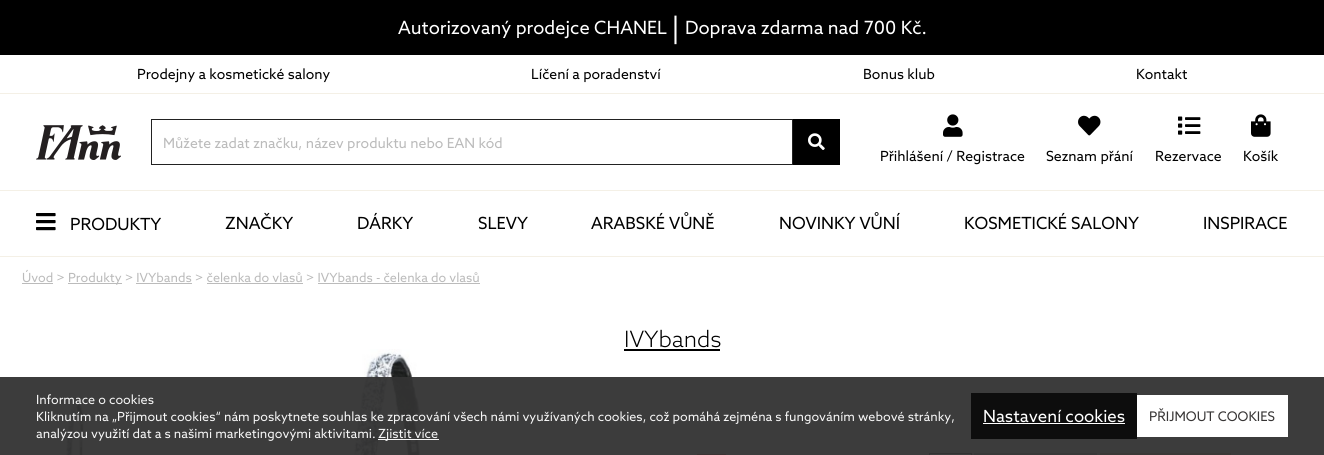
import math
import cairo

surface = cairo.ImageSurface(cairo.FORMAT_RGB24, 1324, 455)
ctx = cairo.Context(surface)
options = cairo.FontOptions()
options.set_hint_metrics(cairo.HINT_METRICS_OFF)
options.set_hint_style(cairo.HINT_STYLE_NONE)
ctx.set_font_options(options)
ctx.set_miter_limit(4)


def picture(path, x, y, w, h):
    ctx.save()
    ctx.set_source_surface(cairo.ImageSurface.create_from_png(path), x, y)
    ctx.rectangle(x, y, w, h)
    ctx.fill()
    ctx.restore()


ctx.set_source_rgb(1, 1, 1)
ctx.paint()
ctx.set_source_rgb(0, 0, 0)
ctx.rectangle(0, 0, 1324, 55)
ctx.fill()
ctx.select_font_face("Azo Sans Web")
ctx.set_font_size(18.25)
ctx.set_source_rgb(1, 1, 1)
ctx.move_to(398, 34)
ctx.show_text("Autorizovaný prodejce CHANEL")
ctx.set_font_size(28)
ctx.move_to(671, 38)
ctx.show_text("|")
ctx.set_font_size(18.25)
ctx.move_to(685, 34)
ctx.show_text("Doprava zdarma nad 700 Kč.")
ctx.set_source_rgb(0.957, 0.941, 0.902)
ctx.rectangle(0, 93, 1324, 1)
ctx.fill()
ctx.set_font_size(14)
ctx.set_source_rgb(0, 0, 0)
ctx.move_to(137, 79)
ctx.show_text("Prodejny a kosmetické salony")
ctx.move_to(531, 79)
ctx.show_text("Líčení a poradenství")
ctx.move_to(863, 79)
ctx.show_text("Bonus klub")
ctx.move_to(1136, 79)
ctx.show_text("Kontakt")
picture("img1.png", 36, 125, 85, 35)
ctx.rectangle(151.5, 119.5, 641, 45)
ctx.set_source_rgb(0.133, 0.133, 0.133)
ctx.set_line_width(1)
ctx.stroke()
ctx.set_source_rgb(0.733, 0.733, 0.733)
ctx.move_to(163, 148)
ctx.show_text("Můžete zadat značku, název produktu nebo EAN kód")
ctx.set_source_rgb(0, 0, 0)
ctx.rectangle(793, 119, 47, 46)
ctx.fill()
picture("img2.png", 808, 133, 17, 17)
picture("img3.png", 943, 114, 20, 23)
ctx.move_to(880, 161)
ctx.show_text("Přihlášení / Registrace")
picture("img4.png", 1078, 115, 23, 21)
ctx.move_to(1046, 161)
ctx.show_text("Seznam přání")
picture("img5.png", 1178, 116, 23, 19)
ctx.move_to(1155, 161)
ctx.show_text("Rezervace")
picture("img6.png", 1251, 114, 20, 23)
ctx.move_to(1243, 161)
ctx.show_text("Košík")
ctx.set_source_rgb(0.957, 0.941, 0.902)
ctx.rectangle(0, 190, 1324, 1)
ctx.fill()
ctx.rectangle(0, 256, 1324, 1)
ctx.fill()
picture("img7.png", 36, 213, 20, 18)
ctx.set_font_size(16.75)
ctx.set_source_rgb(0, 0, 0)
ctx.move_to(70, 230)
ctx.show_text("PRODUKTY")
ctx.move_to(225, 229)
ctx.show_text("ZNAČKY")
ctx.move_to(357, 229)
ctx.show_text("DÁRKY")
ctx.move_to(478, 229)
ctx.show_text("SLEVY")
ctx.move_to(591, 229)
ctx.show_text("ARABSKÉ VŮNĚ")
ctx.move_to(779, 229)
ctx.show_text("NOVINKY VŮNÍ")
ctx.move_to(964, 229)
ctx.show_text("KOSMETICKÉ SALONY")
ctx.move_to(1203, 229)
ctx.show_text("INSPIRACE")
ctx.set_font_size(12.6)
ctx.set_source_rgb(0.733, 0.733, 0.733)
ctx.move_to(22, 282)
ctx.show_text("Úvod >")
ctx.rectangle(22, 283, 31, 1)
ctx.fill()
ctx.rectangle(68, 283, 54, 1)
ctx.fill()
ctx.move_to(68, 282)
ctx.show_text("Produkty > IVYbands > čelenka do vlasů > IVYbands - čelenka do vlasů")
ctx.rectangle(136, 283, 56, 1)
ctx.fill()
ctx.rectangle(207, 283, 96, 1)
ctx.fill()
ctx.rectangle(318, 283, 162, 1)
ctx.fill()
ctx.select_font_face("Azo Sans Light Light")
ctx.set_font_size(22.5)
ctx.set_source_rgb(0, 0, 0)
ctx.move_to(624, 347)
ctx.show_text("IVYbands")
ctx.rectangle(624, 349, 96, 2)
ctx.fill()
picture("img8.png", 66, 402, 18, 53)
picture("img9.png", 352, 349, 72, 106)
ctx.set_source_rgb(0.906, 0.243, 0.243)
ctx.rectangle(697, 454, 29, 1)
ctx.fill()
ctx.rectangle(929.5, 453.5, 42, 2)
ctx.set_source_rgb(0.133, 0.133, 0.133)
ctx.stroke()
ctx.set_source_rgb(0.702, 0.702, 0.702)
ctx.rectangle(974, 453, 123, 2)
ctx.fill()
ctx.set_source_rgb(0.792, 0.698, 0.51)
ctx.rectangle(1100, 453, 131, 2)
ctx.fill()
ctx.set_source_rgba(0.2, 0.2, 0.2, 0.95)
ctx.rectangle(0, 377, 1324, 78)
ctx.fill()
ctx.select_font_face("Azo Sans Web")
ctx.set_font_size(12.6)
ctx.set_source_rgb(0.961, 0.961, 0.961)
ctx.move_to(36, 404)
ctx.show_text("Informace o cookies")
ctx.move_to(36, 421)
ctx.show_text("Kliknutím na „Přijmout cookies“ nám poskytnete souhlas ke zpracování všech námi využívaných cookies, což pomáhá zejména s fungováním webové stránky,")
ctx.move_to(36, 438)
ctx.show_text("analýzou využití dat a s našimi marketingovými aktivitami.")
ctx.set_source_rgba(1, 1, 1, 0.95)
ctx.rectangle(378, 439, 61, 1)
ctx.fill()
ctx.set_source_rgb(0.961, 0.961, 0.961)
ctx.move_to(378, 438)
ctx.show_text("Zjistit více")
ctx.set_source_rgb(0.051, 0.051, 0.051)
ctx.rectangle(971, 393, 166, 46)
ctx.fill()
ctx.set_font_size(16.75)
ctx.set_source_rgb(1, 1, 1)
ctx.move_to(983, 422)
ctx.show_text("Nastavení cookies")
ctx.rectangle(983, 423, 142, 1)
ctx.fill()
ctx.rectangle(1137, 395, 151, 42)
ctx.fill()
ctx.set_font_size(13.25)
ctx.set_source_rgb(0.216, 0.208, 0.208)
ctx.move_to(1149, 421)
ctx.show_text("PŘIJMOUT COOKIES")
surface.write_to_png("page.png")
